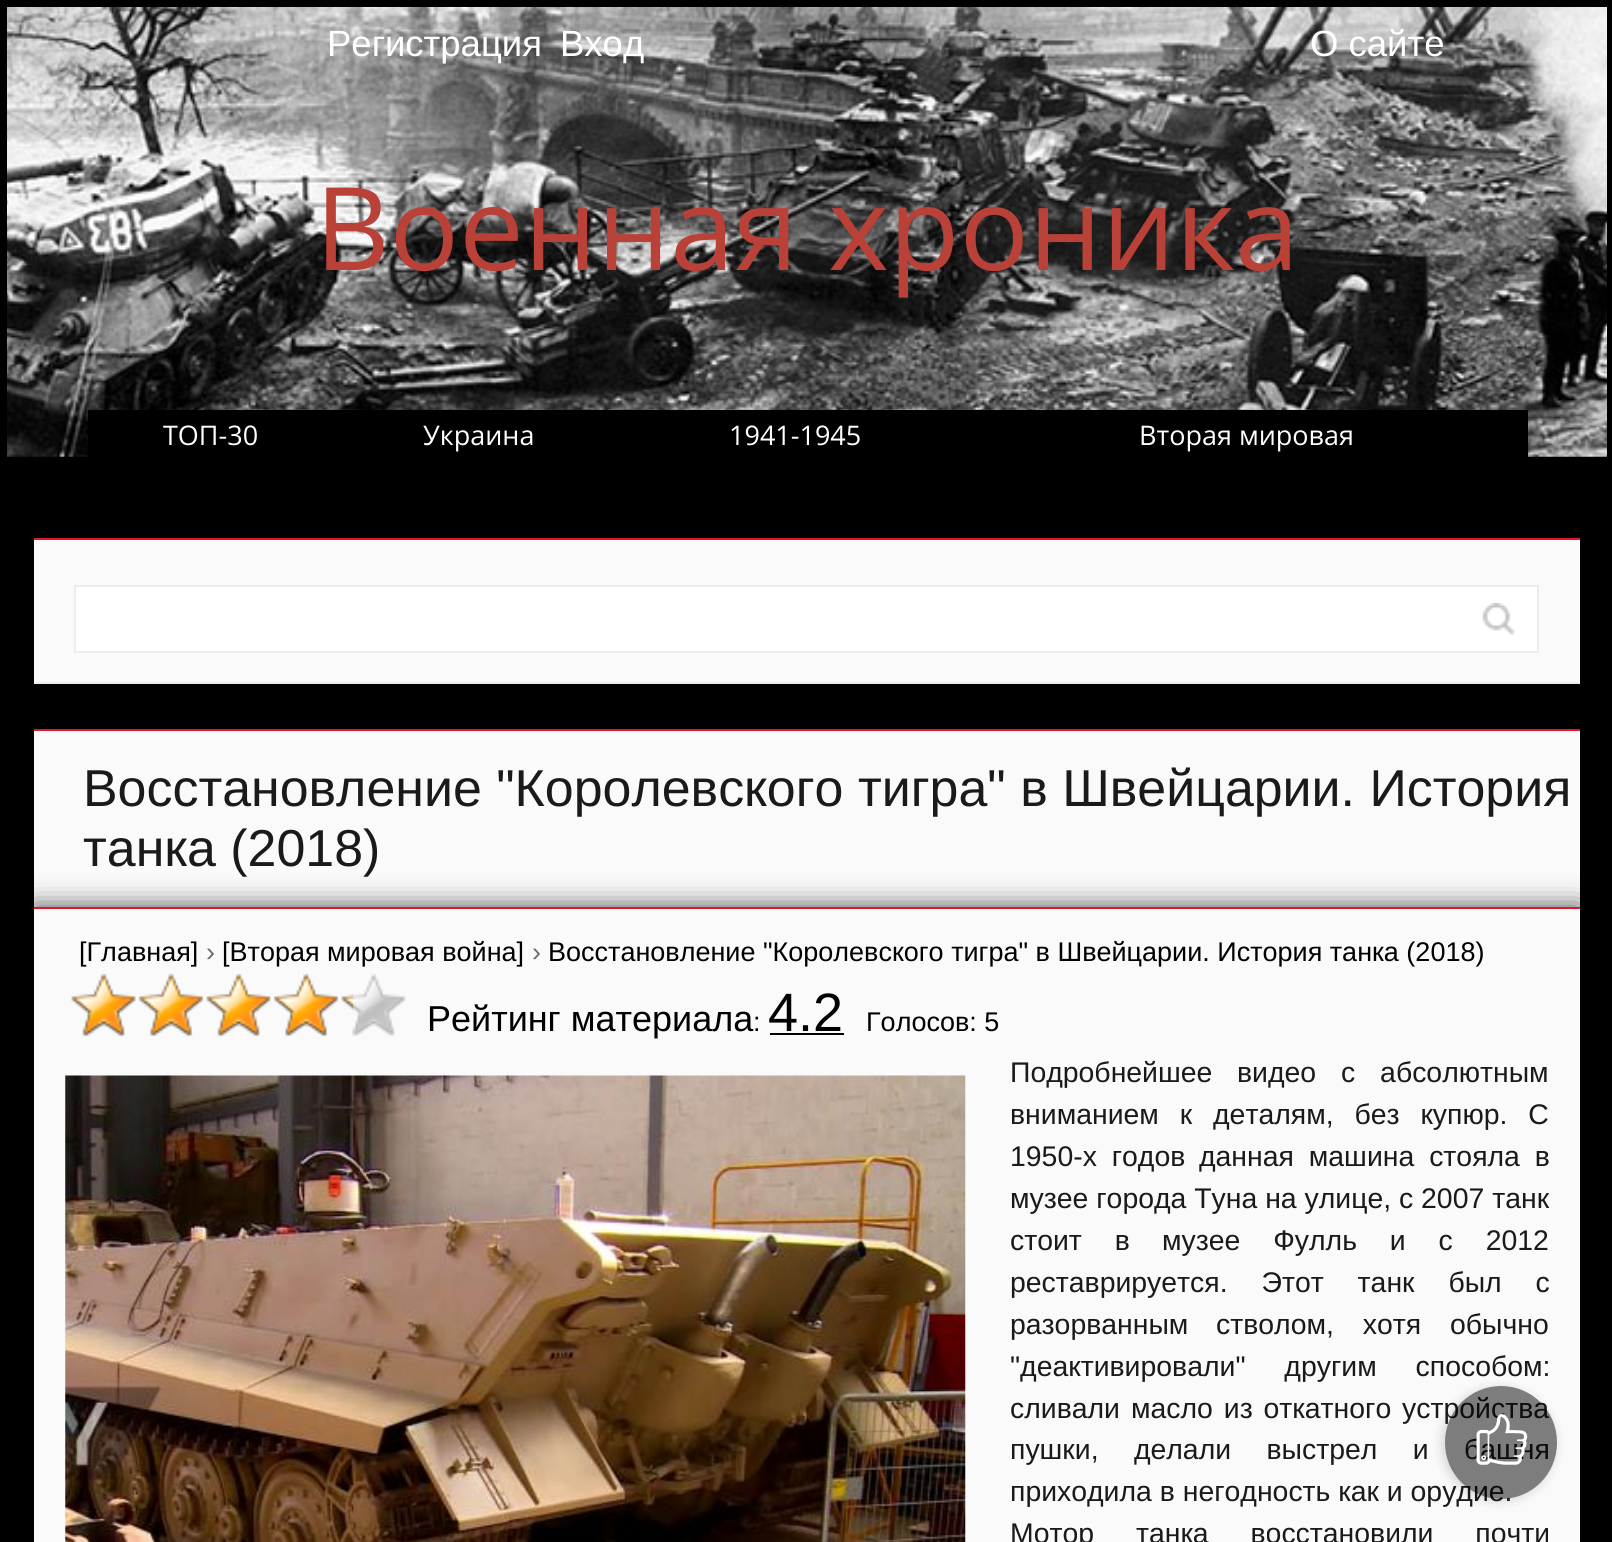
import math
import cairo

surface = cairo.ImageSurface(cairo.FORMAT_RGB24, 1612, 1542)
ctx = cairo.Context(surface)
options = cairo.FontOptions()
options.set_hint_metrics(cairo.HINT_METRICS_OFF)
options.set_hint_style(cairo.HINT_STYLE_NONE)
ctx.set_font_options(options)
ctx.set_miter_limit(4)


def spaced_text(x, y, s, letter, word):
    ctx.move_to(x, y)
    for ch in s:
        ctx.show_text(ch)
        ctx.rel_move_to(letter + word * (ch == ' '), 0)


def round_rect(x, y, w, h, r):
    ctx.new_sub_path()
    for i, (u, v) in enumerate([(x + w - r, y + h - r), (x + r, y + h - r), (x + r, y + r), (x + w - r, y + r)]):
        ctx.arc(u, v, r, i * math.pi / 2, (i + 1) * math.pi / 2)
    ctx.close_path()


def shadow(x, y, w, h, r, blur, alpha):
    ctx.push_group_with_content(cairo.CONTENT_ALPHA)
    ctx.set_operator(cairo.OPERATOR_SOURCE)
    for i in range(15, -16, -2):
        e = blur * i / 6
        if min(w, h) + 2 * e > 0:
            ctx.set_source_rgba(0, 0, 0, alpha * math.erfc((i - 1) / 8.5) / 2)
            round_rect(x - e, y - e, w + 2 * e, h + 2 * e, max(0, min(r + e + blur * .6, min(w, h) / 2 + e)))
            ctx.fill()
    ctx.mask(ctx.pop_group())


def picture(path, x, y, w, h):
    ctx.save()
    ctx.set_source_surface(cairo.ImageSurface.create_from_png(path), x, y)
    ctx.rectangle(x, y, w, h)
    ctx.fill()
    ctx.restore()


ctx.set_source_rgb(0, 0, 0)
ctx.paint()
picture("img1.png", 7, 7, 1600, 450)
ctx.select_font_face("Liberation Sans")
ctx.set_font_size(36.5)
ctx.set_source_rgb(1, 1, 1)
ctx.move_to(327, 56)
ctx.show_text("Регистрация")
ctx.move_to(560, 56)
ctx.show_text("Вход")
ctx.move_to(1310, 56)
ctx.show_text("О сайте")
ctx.select_font_face("Open Sans")
ctx.set_font_size(115.5)
ctx.set_source_rgb(0.725, 0.255, 0.22)
ctx.move_to(315, 270)
ctx.show_text("Военная хроника")
ctx.set_source_rgb(0, 0, 0)
ctx.rectangle(88, 410, 1440, 47)
ctx.fill()
ctx.set_font_size(27)
ctx.set_source_rgb(1, 1, 1)
ctx.move_to(163, 445)
ctx.show_text("ТОП-30")
ctx.move_to(423, 445)
ctx.show_text("Украина")
ctx.move_to(729, 445)
ctx.show_text("1941-1945")
ctx.move_to(1139, 445)
ctx.show_text("Вторая мировая")
ctx.set_source_rgb(0.98, 0.98, 0.98)
ctx.rectangle(34, 540, 1546, 142)
ctx.fill()
ctx.set_source_rgb(0.898, 0.082, 0.149)
ctx.rectangle(34, 538, 1546, 2)
ctx.fill()
ctx.set_source_rgb(0.929, 0.929, 0.929)
ctx.rectangle(34, 682, 1546, 2)
ctx.fill()
ctx.set_source_rgb(1, 1, 1)
ctx.rectangle(75, 586, 1463, 66)
ctx.fill_preserve()
ctx.set_source_rgb(0.929, 0.929, 0.929)
ctx.stroke()
picture("img2.png", 1482, 603, 33, 32)
ctx.set_source_rgb(0.98, 0.98, 0.98)
ctx.rectangle(34, 731, 1546, 176)
ctx.fill()
ctx.set_source_rgb(0.898, 0.082, 0.149)
ctx.rectangle(34, 729, 1546, 2)
ctx.fill()
ctx.select_font_face("Liberation Sans")
ctx.set_font_size(51.9)
ctx.set_source_rgb(0.102, 0.102, 0.102)
ctx.move_to(83, 806)
ctx.show_text("Восстановление \"Королевского тигра\" в Швейцарии. История")
ctx.move_to(83, 866)
ctx.show_text("танка (2018)")
ctx.set_source_rgb(0, 0, 0)
shadow(34, 907, 1546, 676, 0, 13.5, 0.7)
ctx.set_source_rgb(0.98, 0.98, 0.98)
ctx.rectangle(34, 909, 1546, 633)
ctx.fill()
ctx.set_source_rgb(0.898, 0.082, 0.149)
ctx.rectangle(34, 907, 1546, 2)
ctx.fill()
ctx.set_font_size(27)
ctx.set_source_rgb(0, 0, 0)
ctx.move_to(79, 961)
ctx.show_text("[Главная]")
ctx.set_source_rgb(0.424, 0.424, 0.424)
ctx.move_to(206, 961)
ctx.show_text("›")
ctx.set_source_rgb(0, 0, 0)
ctx.move_to(222, 961)
ctx.show_text("[Вторая мировая война]")
ctx.set_source_rgb(0.424, 0.424, 0.424)
ctx.move_to(532, 961)
ctx.show_text("›")
ctx.set_source_rgb(0, 0, 0)
ctx.move_to(548, 961)
ctx.show_text("Восстановление \"Королевского тигра\" в Швейцарии. История танка (2018)")
picture("img3.png", 71, 974, 335, 62)
picture("img4.png", 71, 973, 283, 64)
ctx.set_font_size(36)
ctx.move_to(427, 1031)
ctx.show_text("Рейтинг материала")
ctx.set_font_size(27)
ctx.move_to(753, 1031)
ctx.show_text(":")
ctx.set_font_size(54)
ctx.move_to(768, 1031)
ctx.show_text("4.2")
ctx.rectangle(770, 1033, 74, 2)
ctx.fill()
ctx.set_font_size(27)
ctx.move_to(866, 1031)
ctx.show_text("Голосов: 5")
picture("img5.png", 65, 1075, 901, 467)
ctx.set_font_size(28.4)
ctx.set_source_rgb(0.102, 0.102, 0.102)
ctx.move_to(1010, 1082)
ctx.show_text("Подробнейшее")
spaced_text(1237, 1082, "видео с абсолютным", 0, 17)
spaced_text(1010, 1124, "вниманием к деталям, без купюр. С", 0, 13)
spaced_text(1010, 1166, "1950-х годов", 0, 7)
spaced_text(1199, 1166, "данная машина стояла в", 0, 7)
ctx.move_to(1010, 1208)
ctx.show_text("музее города Туна на улице, с 2007 танк")
spaced_text(1010, 1250, "стоит в", 0, 25)
spaced_text(1162, 1250, "музее Фулль и с 2012", 0, 25)
spaced_text(1010, 1292, "реставрируется. Этот танк был с", 0, 26)
ctx.move_to(1010, 1334)
ctx.show_text("разорванным")
spaced_text(1216, 1334, "стволом, хотя обычно", 0, 21)
spaced_text(1010, 1376, "\"деактивировали\" другим способом:", 0, 31)
ctx.move_to(1010, 1418)
ctx.show_text("сливали")
spaced_text(1131, 1418, "масло из откатного устройства", 0, 3)
spaced_text(1010, 1459, "пушки, делали выстрел и башня", 0, 27.5)
ctx.move_to(1010, 1501)
ctx.show_text("приходила в негодность как и орудие.")
spaced_text(1010, 1543, "Мотор танка восстановили почти", 0, 34)
ctx.save()
ctx.set_fill_rule(cairo.FILL_RULE_EVEN_ODD)
ctx.new_path()
ctx.move_to(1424, 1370)
ctx.line_to(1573, 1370)
ctx.line_to(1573, 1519)
ctx.line_to(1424, 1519)
ctx.close_path()
ctx.move_to(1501, 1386)
ctx.curve_to(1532, 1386, 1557, 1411, 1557, 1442)
ctx.line_to(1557, 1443)
ctx.curve_to(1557, 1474, 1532, 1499, 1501, 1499)
ctx.curve_to(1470, 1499, 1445, 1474, 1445, 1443)
ctx.line_to(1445, 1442)
ctx.curve_to(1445, 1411, 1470, 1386, 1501, 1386)
ctx.close_path()
ctx.clip()
ctx.set_source_rgb(0, 0, 0)
shadow(1442, 1388, 113, 113, 56.5, 5.5, 0.15)
ctx.restore()
ctx.set_source_rgba(0, 0, 0, 0.5)
round_rect(1445, 1386, 112, 113, 56)
ctx.fill()
picture("img6.png", 1476, 1414, 52, 51)
surface.write_to_png("page.png")
